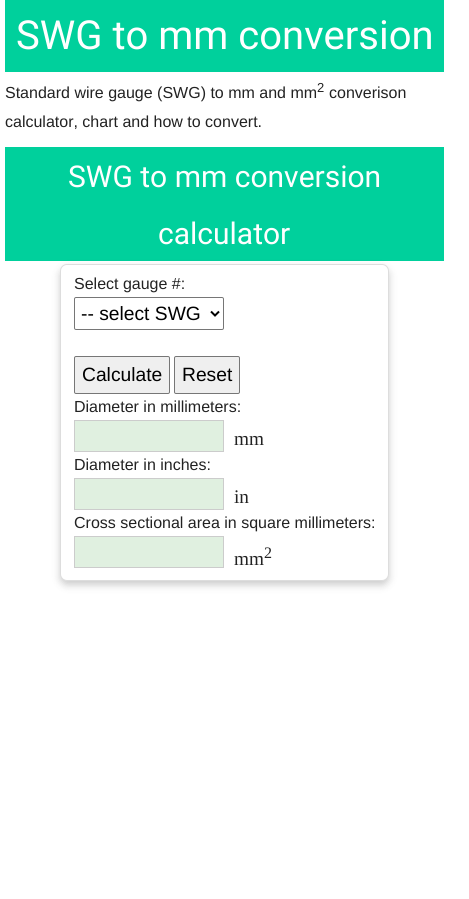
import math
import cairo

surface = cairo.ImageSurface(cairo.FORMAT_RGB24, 469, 899)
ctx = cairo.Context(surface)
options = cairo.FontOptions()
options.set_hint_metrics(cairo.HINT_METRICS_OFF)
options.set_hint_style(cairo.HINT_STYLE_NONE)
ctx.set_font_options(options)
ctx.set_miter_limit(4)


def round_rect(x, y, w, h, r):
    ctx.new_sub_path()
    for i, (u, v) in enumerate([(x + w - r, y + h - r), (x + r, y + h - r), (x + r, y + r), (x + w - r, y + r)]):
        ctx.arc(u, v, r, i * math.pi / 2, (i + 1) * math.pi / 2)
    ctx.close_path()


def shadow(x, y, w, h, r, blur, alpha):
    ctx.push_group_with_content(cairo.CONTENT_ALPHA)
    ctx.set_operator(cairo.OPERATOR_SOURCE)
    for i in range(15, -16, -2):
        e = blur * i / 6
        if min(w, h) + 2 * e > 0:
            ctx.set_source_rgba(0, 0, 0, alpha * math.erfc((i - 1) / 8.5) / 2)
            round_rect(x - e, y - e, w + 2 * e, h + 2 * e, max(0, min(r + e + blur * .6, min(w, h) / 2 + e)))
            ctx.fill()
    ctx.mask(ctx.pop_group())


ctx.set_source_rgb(1, 1, 1)
ctx.paint()
ctx.set_source_rgb(0, 0.816, 0.612)
ctx.rectangle(5, 0, 439, 72)
ctx.fill()
ctx.select_font_face("Roboto")
ctx.set_font_size(40)
ctx.set_source_rgb(1, 1, 1)
ctx.move_to(16, 49)
ctx.show_text("SWG to mm conversion")
ctx.select_font_face("Liberation Sans")
ctx.set_font_size(16)
ctx.set_source_rgb(0.133, 0.133, 0.133)
ctx.move_to(5, 98)
ctx.show_text("Standard wire gauge (SWG) to mm and mm")
ctx.set_font_size(13)
ctx.move_to(317, 92)
ctx.show_text("2")
ctx.set_font_size(16)
ctx.move_to(329, 98)
ctx.show_text("converison")
ctx.move_to(5, 127)
ctx.show_text("calculator, chart and how to convert.")
ctx.set_source_rgb(0, 0.816, 0.612)
ctx.rectangle(5, 147, 439, 114)
ctx.fill()
ctx.select_font_face("Roboto")
ctx.set_font_size(30)
ctx.set_source_rgb(1, 1, 1)
ctx.move_to(68, 187)
ctx.show_text("SWG to mm conversion")
ctx.move_to(158, 244)
ctx.show_text("calculator")
ctx.set_source_rgb(0, 0, 0)
shadow(60, 268, 329, 317, 7, 4, 0.2)
ctx.set_source_rgb(1, 1, 1)
round_rect(60.5, 264.5, 328, 316, 6.5)
ctx.fill_preserve()
ctx.set_source_rgb(0.867, 0.867, 0.867)
ctx.set_line_width(1)
ctx.stroke()
ctx.select_font_face("Liberation Sans")
ctx.set_font_size(16)
ctx.set_source_rgb(0.133, 0.133, 0.133)
ctx.move_to(74, 289)
ctx.show_text("Select gauge #:")
round_rect(74.5, 297.5, 149, 32, 1.5)
ctx.set_source_rgb(0.463, 0.463, 0.463)
ctx.stroke()
ctx.new_path()
ctx.move_to(211, 311.5)
ctx.line_to(215, 315.5)
ctx.line_to(219, 311.5)
ctx.set_source_rgb(0, 0, 0)
ctx.set_line_width(2)
ctx.stroke()
ctx.set_font_size(19.25)
ctx.move_to(81, 320)
ctx.show_text("-- select SWG")
ctx.set_source_rgb(0.937, 0.937, 0.937)
round_rect(74.5, 356.5, 95, 37, 1.5)
ctx.fill_preserve()
ctx.set_source_rgb(0.463, 0.463, 0.463)
ctx.set_line_width(1)
ctx.stroke()
ctx.set_source_rgb(0, 0, 0)
ctx.move_to(82, 381)
ctx.show_text("Calculate")
ctx.set_source_rgb(0.937, 0.937, 0.937)
round_rect(174.5, 356.5, 65, 37, 1.5)
ctx.fill_preserve()
ctx.set_source_rgb(0.463, 0.463, 0.463)
ctx.stroke()
ctx.set_source_rgb(0, 0, 0)
ctx.move_to(182, 381)
ctx.show_text("Reset")
ctx.set_font_size(16)
ctx.set_source_rgb(0.133, 0.133, 0.133)
ctx.move_to(74, 412)
ctx.show_text("Diameter in millimeters:")
ctx.set_source_rgb(0.878, 0.941, 0.878)
ctx.rectangle(74.5, 420.5, 149, 31)
ctx.fill_preserve()
ctx.set_source_rgb(0.8, 0.8, 0.8)
ctx.stroke()
ctx.select_font_face("Liberation Serif")
ctx.set_font_size(19.25)
ctx.set_source_rgb(0.133, 0.133, 0.133)
ctx.move_to(234, 445)
ctx.show_text("mm")
ctx.select_font_face("Liberation Sans")
ctx.set_font_size(16)
ctx.move_to(74, 470)
ctx.show_text("Diameter in inches:")
ctx.set_source_rgb(0.878, 0.941, 0.878)
ctx.rectangle(74.5, 478.5, 149, 31)
ctx.fill_preserve()
ctx.set_source_rgb(0.8, 0.8, 0.8)
ctx.stroke()
ctx.select_font_face("Liberation Serif")
ctx.set_font_size(19.25)
ctx.set_source_rgb(0.133, 0.133, 0.133)
ctx.move_to(234, 503)
ctx.show_text("in")
ctx.select_font_face("Liberation Sans")
ctx.set_font_size(16)
ctx.move_to(74, 528)
ctx.show_text("Cross sectional area in square millimeters:")
ctx.set_source_rgb(0.878, 0.941, 0.878)
ctx.rectangle(74.5, 536.5, 149, 31)
ctx.fill_preserve()
ctx.set_source_rgb(0.8, 0.8, 0.8)
ctx.stroke()
ctx.select_font_face("Liberation Serif")
ctx.set_source_rgb(0.133, 0.133, 0.133)
ctx.move_to(264, 558)
ctx.show_text("2")
ctx.set_font_size(19.25)
ctx.move_to(234, 565)
ctx.show_text("mm")
surface.write_to_png("page.png")
